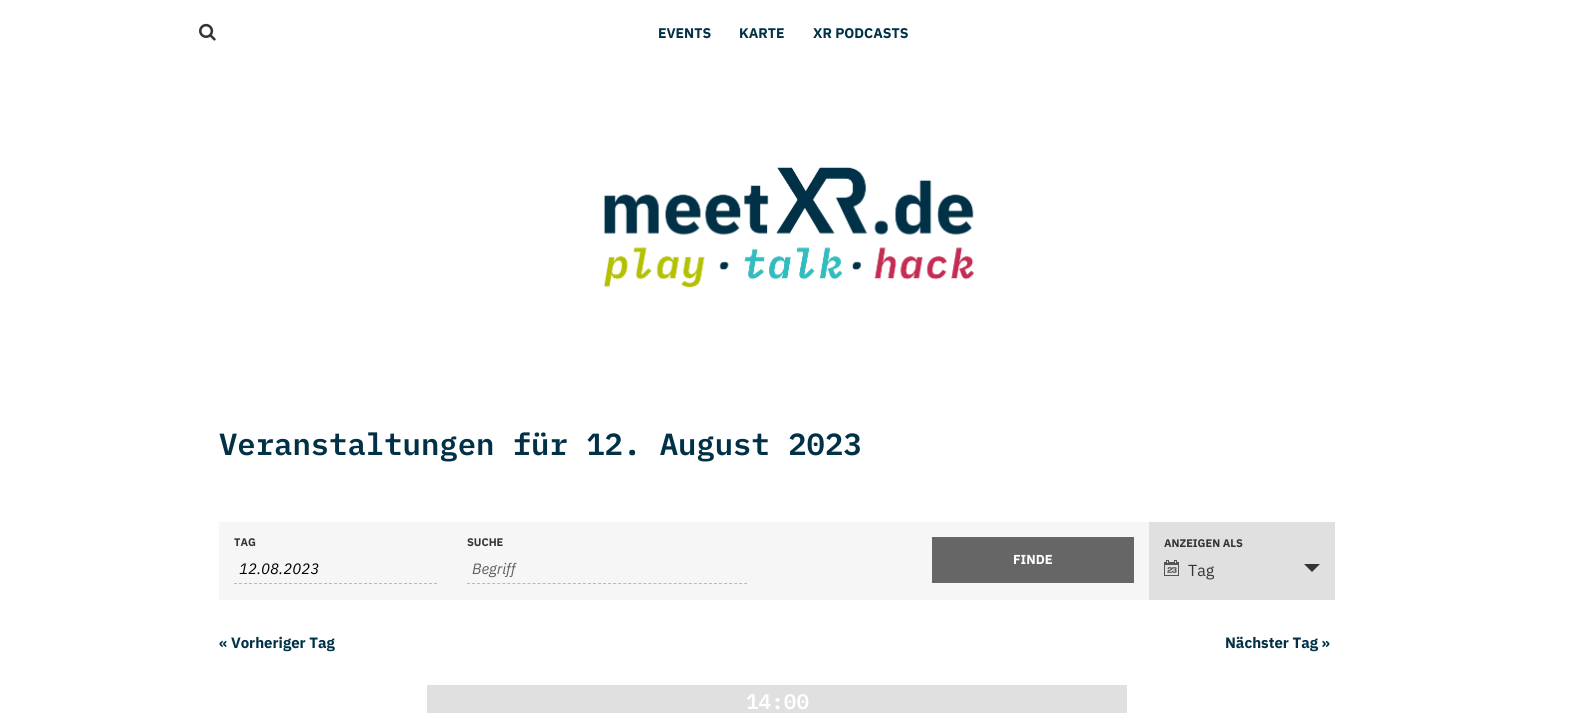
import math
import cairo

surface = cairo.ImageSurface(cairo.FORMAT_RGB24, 1578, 713)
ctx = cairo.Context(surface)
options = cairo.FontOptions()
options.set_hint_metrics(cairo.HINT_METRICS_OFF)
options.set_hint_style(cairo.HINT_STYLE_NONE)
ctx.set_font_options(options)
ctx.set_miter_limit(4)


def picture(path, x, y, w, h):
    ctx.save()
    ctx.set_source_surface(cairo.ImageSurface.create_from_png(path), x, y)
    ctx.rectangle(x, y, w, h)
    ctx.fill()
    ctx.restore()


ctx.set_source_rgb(1, 1, 1)
ctx.paint()
picture("img1.png", 199, 23, 17, 18)
ctx.select_font_face("IBM Plex Sans", cairo.FONT_SLANT_NORMAL, cairo.FONT_WEIGHT_BOLD)
ctx.set_font_size(14)
ctx.set_source_rgb(0.004, 0.192, 0.278)
ctx.move_to(658, 38)
ctx.show_text("EVENTS")
ctx.move_to(739, 38)
ctx.show_text("KARTE")
ctx.move_to(813, 38)
ctx.show_text("XR PODCASTS")
picture("img2.png", 603, 166, 372, 122)
ctx.select_font_face("IBM Plex Mono SemiBold")
ctx.set_font_size(30.6)
ctx.move_to(219, 455)
ctx.show_text("Veranstaltungen für 12. August 2023")
ctx.set_source_rgb(0.961, 0.961, 0.961)
ctx.rectangle(219, 522, 930, 78)
ctx.fill()
ctx.select_font_face("IBM Plex Sans", cairo.FONT_SLANT_NORMAL, cairo.FONT_WEIGHT_BOLD)
ctx.set_font_size(11)
ctx.set_source_rgb(0.208, 0.208, 0.208)
ctx.move_to(234, 546)
ctx.show_text("TAG")
ctx.new_path()
ctx.move_to(234, 583.5)
ctx.line_to(437, 583.5)
ctx.set_source_rgb(0.725, 0.725, 0.725)
ctx.set_line_width(1)
ctx.set_dash([3, 2])
ctx.stroke()
ctx.select_font_face("IBM Plex Sans", cairo.FONT_SLANT_ITALIC)
ctx.set_font_size(15)
ctx.set_source_rgb(0, 0, 0)
ctx.move_to(239, 574)
ctx.show_text("12.08.2023")
ctx.select_font_face("IBM Plex Sans", cairo.FONT_SLANT_NORMAL, cairo.FONT_WEIGHT_BOLD)
ctx.set_font_size(11)
ctx.set_source_rgb(0.208, 0.208, 0.208)
ctx.move_to(467, 546)
ctx.show_text("SUCHE")
ctx.new_path()
ctx.move_to(467, 583.5)
ctx.line_to(747, 583.5)
ctx.set_source_rgb(0.725, 0.725, 0.725)
ctx.set_dash([3, 2.04])
ctx.stroke()
ctx.select_font_face("IBM Plex Sans", cairo.FONT_SLANT_ITALIC)
ctx.set_font_size(15)
ctx.set_source_rgb(0.373, 0.373, 0.373)
ctx.move_to(472, 574)
ctx.show_text("Begriff")
ctx.set_source_rgb(0.4, 0.4, 0.4)
ctx.rectangle(932, 537, 202, 46)
ctx.fill()
ctx.select_font_face("IBM Plex Sans", cairo.FONT_SLANT_NORMAL, cairo.FONT_WEIGHT_BOLD)
ctx.set_font_size(13)
ctx.set_source_rgb(1, 1, 1)
ctx.move_to(1013, 564)
ctx.show_text("FINDE")
ctx.set_source_rgb(0.878, 0.878, 0.878)
ctx.rectangle(1149, 522, 186, 78)
ctx.fill()
ctx.set_font_size(11)
ctx.set_source_rgb(0.208, 0.208, 0.208)
ctx.move_to(1164, 547)
ctx.show_text("ANZEIGEN ALS")
picture("img3.png", 1164, 560, 15, 16)
ctx.select_font_face("IBM Plex Sans")
ctx.set_font_size(16)
ctx.move_to(1188, 576)
ctx.show_text("Tag")
ctx.set_source_rgb(0.2, 0.2, 0.2)
ctx.new_path()
ctx.move_to(1304, 564)
ctx.line_to(1320, 564)
ctx.line_to(1312, 572)
ctx.close_path()
ctx.fill()
ctx.select_font_face("IBM Plex Sans", cairo.FONT_SLANT_NORMAL, cairo.FONT_WEIGHT_BOLD)
ctx.set_font_size(15)
ctx.set_source_rgb(0.004, 0.192, 0.278)
ctx.move_to(219, 648)
ctx.show_text("« Vorheriger Tag")
ctx.move_to(1225, 648)
ctx.show_text("Nächster Tag »")
ctx.set_source_rgb(0.878, 0.878, 0.878)
ctx.rectangle(427, 685, 700, 28)
ctx.fill()
ctx.select_font_face("IBM Plex Mono SemiBold")
ctx.set_font_size(21)
ctx.set_source_rgb(1, 1, 1)
ctx.move_to(746, 709)
ctx.show_text("14:00")
surface.write_to_png("page.png")
